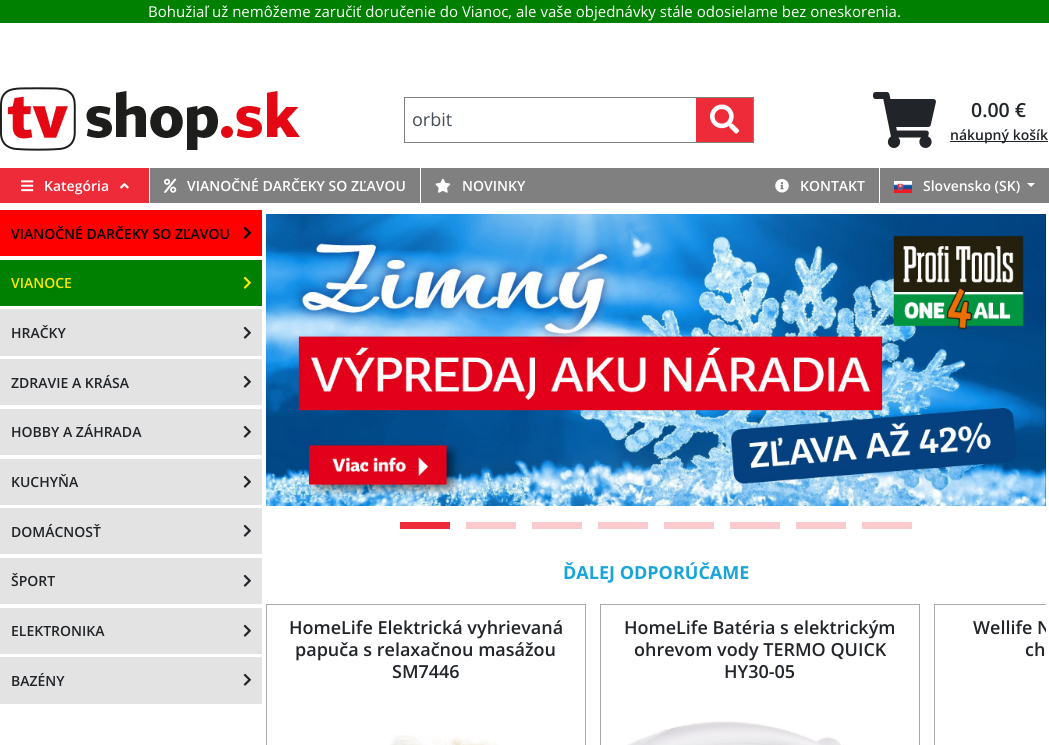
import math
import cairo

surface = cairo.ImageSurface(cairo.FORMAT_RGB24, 1049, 745)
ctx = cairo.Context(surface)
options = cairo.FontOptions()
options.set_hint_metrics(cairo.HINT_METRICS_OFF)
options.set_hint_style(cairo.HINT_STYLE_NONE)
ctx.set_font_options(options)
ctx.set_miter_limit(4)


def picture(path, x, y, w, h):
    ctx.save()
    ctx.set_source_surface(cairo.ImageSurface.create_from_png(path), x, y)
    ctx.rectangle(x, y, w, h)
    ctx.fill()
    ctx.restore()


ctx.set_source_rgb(1, 1, 1)
ctx.paint()
ctx.set_source_rgb(0, 0.502, 0)
ctx.rectangle(0, 0, 1049, 23)
ctx.fill()
ctx.select_font_face("Open Sans")
ctx.set_font_size(15)
ctx.set_source_rgb(1, 1, 1)
ctx.move_to(148, 17)
ctx.show_text("Bohužiaľ už nemôžeme zaručiť doručenie do Vianoc, ale vaše objednávky stále odosielame bez oneskorenia.")
picture("img1.png", 0, 87, 300, 64)
ctx.set_source_rgb(0.502, 0.502, 0.502)
ctx.rectangle(404, 97, 350, 1)
ctx.fill()
ctx.rectangle(753, 97, 1, 46)
ctx.fill()
ctx.rectangle(404, 142, 350, 1)
ctx.fill()
ctx.set_source_rgb(0.933, 0.169, 0.224)
ctx.rectangle(696, 98, 57, 44)
ctx.fill()
picture("img2.png", 710, 104, 30, 30)
ctx.set_source_rgb(0.502, 0.502, 0.502)
ctx.rectangle(404, 97, 1, 46)
ctx.fill()
ctx.set_font_size(18)
ctx.set_source_rgb(0.271, 0.306, 0.337)
ctx.move_to(412, 126)
ctx.show_text("orbit")
picture("img3.png", 873, 92, 63, 56)
ctx.select_font_face("Open Sans SemiBold")
ctx.set_font_size(19.5)
ctx.set_source_rgb(0.129, 0.145, 0.161)
ctx.move_to(971, 117)
ctx.show_text("0.00 €")
ctx.rectangle(950, 141, 98, 1)
ctx.fill()
ctx.set_font_size(14)
ctx.move_to(950, 140)
ctx.show_text("nákupný košík")
ctx.set_source_rgb(0.502, 0.502, 0.502)
ctx.rectangle(150, 168, 899, 35)
ctx.fill()
ctx.set_source_rgb(0.933, 0.169, 0.224)
ctx.rectangle(0, 168, 149, 35)
ctx.fill()
picture("img4.png", 21, 180, 13, 12)
ctx.set_source_rgb(1, 1, 1)
ctx.move_to(44, 191)
ctx.show_text("Kategória")
picture("img5.png", 120, 183, 9, 6)
ctx.rectangle(420, 168, 1, 35)
ctx.fill()
picture("img6.png", 164, 178, 13, 15)
ctx.move_to(187, 191)
ctx.show_text("VIANOČNÉ DARČEKY SO ZĽAVOU")
picture("img7.png", 435, 178, 16, 15)
ctx.move_to(462, 191)
ctx.show_text("NOVINKY")
ctx.rectangle(879, 168, 1, 35)
ctx.fill()
picture("img8.png", 775, 179, 14, 14)
ctx.move_to(800, 191)
ctx.show_text("KONTAKT")
picture("img9.png", 894, 181, 18, 12)
ctx.move_to(923, 191)
ctx.show_text("Slovensko (SK)")
ctx.new_path()
ctx.move_to(1027, 183)
ctx.line_to(1035, 183)
ctx.line_to(1031, 187)
ctx.close_path()
ctx.fill()
ctx.set_source_rgb(1, 0, 0)
ctx.rectangle(0, 210, 262, 46)
ctx.fill()
ctx.set_source_rgb(0, 0, 0)
ctx.move_to(11, 239)
ctx.show_text("VIANOČNÉ DARČEKY SO ZĽAVOU")
picture("img10.png", 243, 226, 8, 13)
ctx.set_source_rgb(0, 0.502, 0)
ctx.rectangle(0, 260, 262, 46)
ctx.fill()
ctx.set_source_rgb(0.996, 0.906, 0.004)
ctx.move_to(11, 288)
ctx.show_text("VIANOCE")
picture("img11.png", 243, 276, 8, 13)
ctx.set_source_rgb(0.89, 0.89, 0.89)
ctx.rectangle(0, 309, 262, 47)
ctx.fill()
ctx.set_source_rgb(0.129, 0.145, 0.161)
ctx.move_to(11, 338)
ctx.show_text("HRAČKY")
picture("img12.png", 243, 326, 8, 13)
ctx.set_source_rgb(0.89, 0.89, 0.89)
ctx.rectangle(0, 359, 262, 46)
ctx.fill()
ctx.set_source_rgb(0.129, 0.145, 0.161)
ctx.move_to(11, 388)
ctx.show_text("ZDRAVIE A KRÁSA")
picture("img12.png", 243, 375, 8, 13)
ctx.set_source_rgb(0.89, 0.89, 0.89)
ctx.rectangle(0, 409, 262, 46)
ctx.fill()
ctx.set_source_rgb(0.129, 0.145, 0.161)
ctx.move_to(11, 437)
ctx.show_text("HOBBY A ZÁHRADA")
picture("img12.png", 243, 425, 8, 13)
ctx.set_source_rgb(0.89, 0.89, 0.89)
ctx.rectangle(0, 459, 262, 46)
ctx.fill()
ctx.set_source_rgb(0.129, 0.145, 0.161)
ctx.move_to(11, 487)
ctx.show_text("KUCHYŇA")
picture("img12.png", 243, 475, 8, 13)
ctx.set_source_rgb(0.89, 0.89, 0.89)
ctx.rectangle(0, 508, 262, 46)
ctx.fill()
ctx.set_source_rgb(0.129, 0.145, 0.161)
ctx.move_to(11, 537)
ctx.show_text("DOMÁCNOSŤ")
picture("img12.png", 243, 524, 8, 13)
ctx.set_source_rgb(0.89, 0.89, 0.89)
ctx.rectangle(0, 558, 262, 46)
ctx.fill()
ctx.set_source_rgb(0.129, 0.145, 0.161)
ctx.move_to(11, 586)
ctx.show_text("ŠPORT")
picture("img12.png", 243, 574, 8, 13)
ctx.set_source_rgb(0.89, 0.89, 0.89)
ctx.rectangle(0, 608, 262, 46)
ctx.fill()
ctx.set_source_rgb(0.129, 0.145, 0.161)
ctx.move_to(11, 636)
ctx.show_text("ELEKTRONIKA")
picture("img12.png", 243, 624, 8, 13)
ctx.set_source_rgb(0.89, 0.89, 0.89)
ctx.rectangle(0, 657, 262, 47)
ctx.fill()
ctx.set_source_rgb(0.129, 0.145, 0.161)
ctx.move_to(11, 686)
ctx.show_text("BAZÉNY")
picture("img12.png", 243, 673, 8, 13)
picture("img13.png", 266, 214, 780, 292)
picture("img14.png", 1045, 214, 1, 292)
ctx.set_source_rgb(0.933, 0.169, 0.224)
ctx.rectangle(400, 522, 50, 7)
ctx.fill()
ctx.set_source_rgb(0.984, 0.792, 0.808)
ctx.rectangle(466, 522, 50, 7)
ctx.fill()
ctx.rectangle(532, 522, 50, 7)
ctx.fill()
ctx.rectangle(598, 522, 50, 7)
ctx.fill()
ctx.rectangle(664, 522, 50, 7)
ctx.fill()
ctx.rectangle(730, 522, 50, 7)
ctx.fill()
ctx.rectangle(796, 522, 50, 7)
ctx.fill()
ctx.rectangle(862, 522, 50, 7)
ctx.fill()
ctx.select_font_face("Open Sans", cairo.FONT_SLANT_NORMAL, cairo.FONT_WEIGHT_BOLD)
ctx.set_font_size(18)
ctx.set_source_rgb(0.094, 0.647, 0.855)
ctx.move_to(563, 579)
ctx.show_text("ĎALEJ ODPORÚČAME")
ctx.rectangle(266.5, 604.5, 319, 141)
ctx.set_source_rgb(0.667, 0.667, 0.667)
ctx.set_line_width(1)
ctx.stroke()
ctx.select_font_face("Open Sans SemiBold")
ctx.set_source_rgb(0.129, 0.145, 0.161)
ctx.move_to(289, 634)
ctx.show_text("HomeLife Elektrická vyhrievaná")
ctx.move_to(295, 656)
ctx.show_text("papuča s relaxačnou masážou")
ctx.move_to(392, 678)
ctx.show_text("SM7446")
picture("img15.png", 390, 735, 109, 10)
ctx.rectangle(600.5, 604.5, 319, 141)
ctx.set_source_rgb(0.667, 0.667, 0.667)
ctx.stroke()
ctx.set_source_rgb(0.129, 0.145, 0.161)
ctx.move_to(624, 634)
ctx.show_text("HomeLife Batéria s elektrickým")
ctx.move_to(634, 656)
ctx.show_text("ohrevom vody TERMO QUICK")
ctx.move_to(724, 678)
ctx.show_text("HY30-05")
picture("img16.png", 627, 721, 214, 24)
ctx.save()
ctx.rectangle(266, 604, 780, 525)
ctx.clip()
ctx.rectangle(934.5, 604.5, 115, 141)
ctx.set_source_rgb(0.667, 0.667, 0.667)
ctx.stroke()
ctx.restore()
ctx.save()
ctx.rectangle(935, 605, 111, 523)
ctx.clip()
ctx.move_to(973, 634)
ctx.show_text("Wellife N")
ctx.restore()
ctx.move_to(1025, 656)
ctx.show_text("ch")
surface.write_to_png("page.png")
